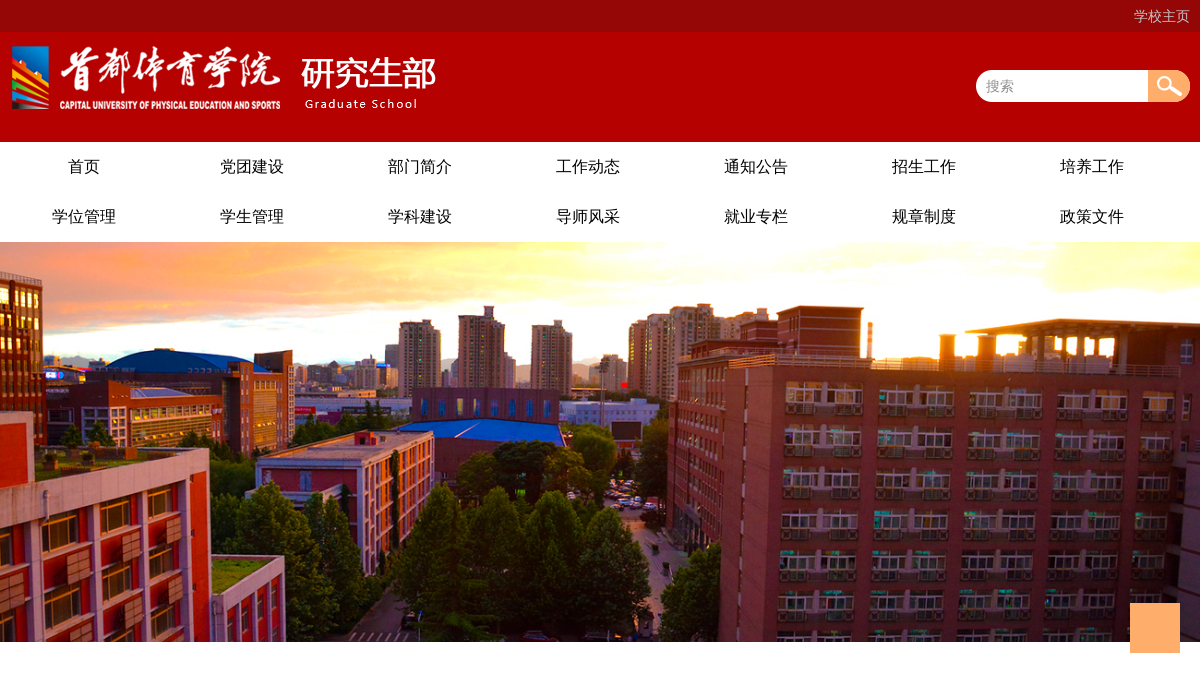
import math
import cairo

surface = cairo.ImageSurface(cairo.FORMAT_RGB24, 1200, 673)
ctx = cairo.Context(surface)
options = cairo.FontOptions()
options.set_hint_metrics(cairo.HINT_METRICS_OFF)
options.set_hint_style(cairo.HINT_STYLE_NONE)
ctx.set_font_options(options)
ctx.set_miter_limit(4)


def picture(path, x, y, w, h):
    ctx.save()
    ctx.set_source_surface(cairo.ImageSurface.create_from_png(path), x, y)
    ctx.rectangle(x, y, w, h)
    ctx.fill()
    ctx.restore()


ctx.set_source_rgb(1, 1, 1)
ctx.paint()
ctx.set_source_rgb(0.714, 0.004, 0.004)
ctx.rectangle(0, 32, 1200, 110)
ctx.fill()
ctx.set_source_rgb(0.584, 0.024, 0.024)
ctx.rectangle(0, 0, 1200, 32)
ctx.fill()
ctx.select_font_face("WenQuanYi Zen Hei Medium")
ctx.set_font_size(14)
ctx.set_source_rgb(0.769, 0.773, 0.773)
ctx.move_to(1134, 21)
ctx.show_text("学校主页")
picture("img1.png", 12, 46, 268, 63)
picture("img2.png", 301, 57, 135, 51)
picture("img3.png", 976, 70, 214, 32)
ctx.set_source_rgb(0.553, 0.553, 0.553)
ctx.move_to(986, 91)
ctx.show_text("搜索")
picture("img4.png", 1157, 76, 25, 20)
ctx.set_font_size(16)
ctx.set_source_rgb(0, 0, 0)
ctx.move_to(68, 172)
ctx.show_text("首页")
ctx.move_to(220, 172)
ctx.show_text("党团建设")
ctx.move_to(388, 172)
ctx.show_text("部门简介")
ctx.move_to(556, 172)
ctx.show_text("工作动态")
ctx.move_to(724, 172)
ctx.show_text("通知公告")
ctx.move_to(892, 172)
ctx.show_text("招生工作")
ctx.move_to(1060, 172)
ctx.show_text("培养工作")
ctx.move_to(52, 222)
ctx.show_text("学位管理")
ctx.move_to(220, 222)
ctx.show_text("学生管理")
ctx.move_to(388, 222)
ctx.show_text("学科建设")
ctx.move_to(556, 222)
ctx.show_text("导师风采")
ctx.move_to(724, 222)
ctx.show_text("就业专栏")
ctx.move_to(892, 222)
ctx.show_text("规章制度")
ctx.move_to(1060, 222)
ctx.show_text("政策文件")
picture("img5.png", 0, 242, 1200, 400)
ctx.set_source_rgb(1, 0.678, 0.416)
ctx.rectangle(1130, 603, 50, 50)
ctx.fill()
surface.write_to_png("page.png")
